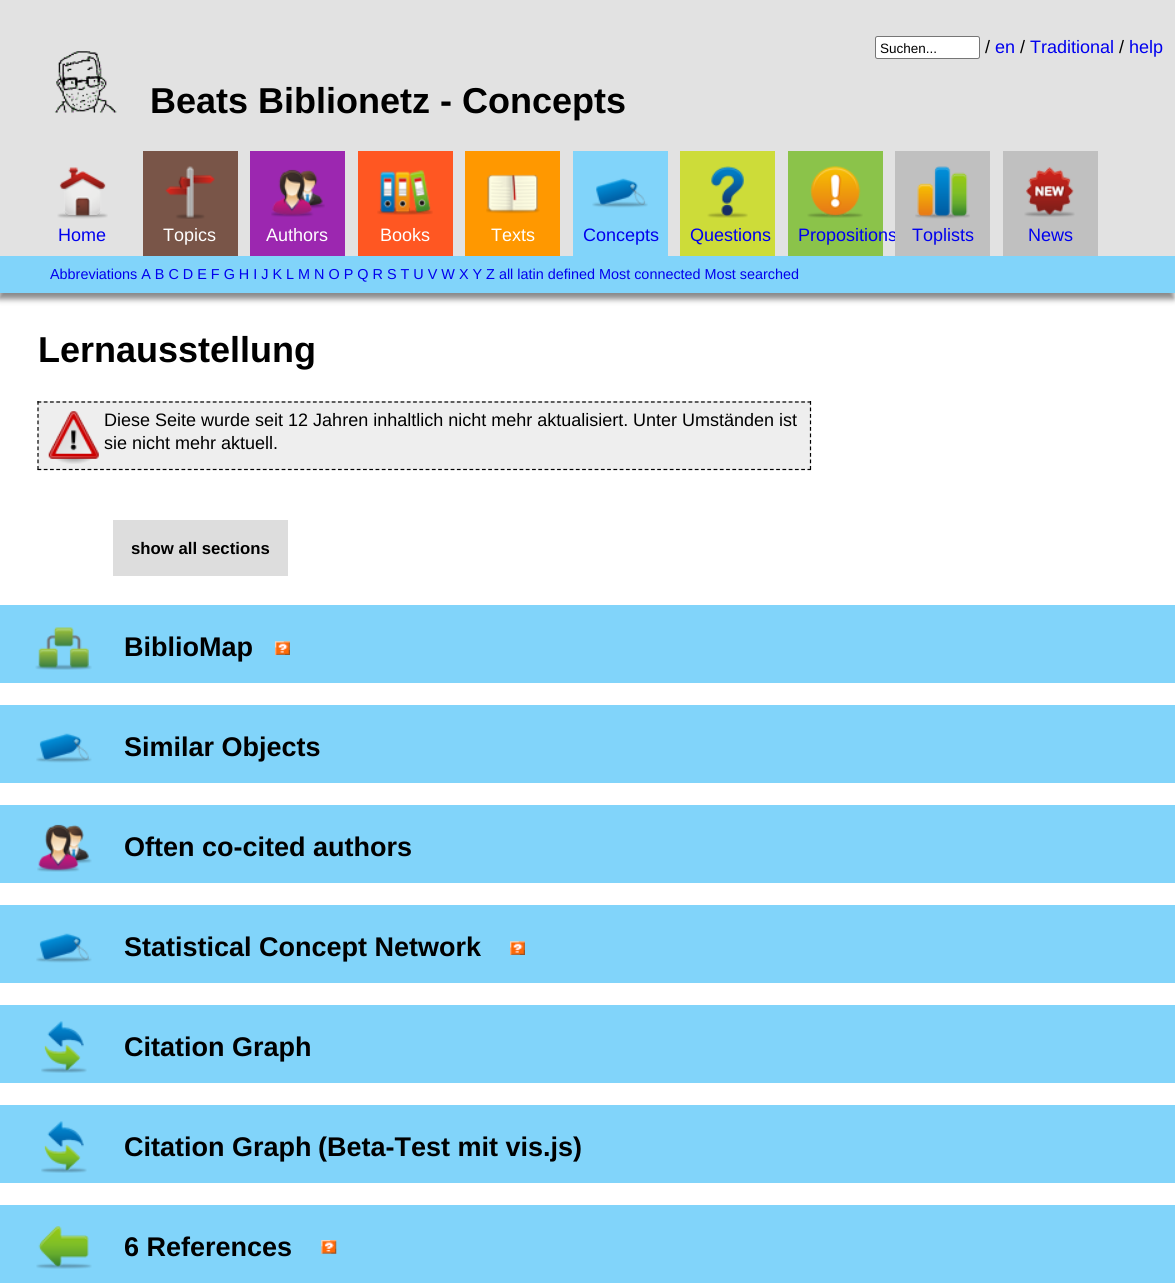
import math
import cairo

surface = cairo.ImageSurface(cairo.FORMAT_RGB24, 1175, 1287)
ctx = cairo.Context(surface)
options = cairo.FontOptions()
options.set_hint_metrics(cairo.HINT_METRICS_OFF)
options.set_hint_style(cairo.HINT_STYLE_NONE)
ctx.set_font_options(options)
ctx.set_miter_limit(4)


def round_rect(x, y, w, h, r):
    ctx.new_sub_path()
    for i, (u, v) in enumerate([(x + w - r, y + h - r), (x + r, y + h - r), (x + r, y + r), (x + w - r, y + r)]):
        ctx.arc(u, v, r, i * math.pi / 2, (i + 1) * math.pi / 2)
    ctx.close_path()


def shadow(x, y, w, h, r, blur, alpha):
    ctx.push_group_with_content(cairo.CONTENT_ALPHA)
    ctx.set_operator(cairo.OPERATOR_SOURCE)
    for i in range(15, -16, -2):
        e = blur * i / 6
        if min(w, h) + 2 * e > 0:
            ctx.set_source_rgba(0, 0, 0, alpha * math.erfc((i - 1) / 8.5) / 2)
            round_rect(x - e, y - e, w + 2 * e, h + 2 * e, max(0, min(r + e + blur * .6, min(w, h) / 2 + e)))
            ctx.fill()
    ctx.mask(ctx.pop_group())


def picture(path, x, y, w, h):
    ctx.save()
    ctx.set_source_surface(cairo.ImageSurface.create_from_png(path), x, y)
    ctx.rectangle(x, y, w, h)
    ctx.fill()
    ctx.restore()


ctx.set_source_rgb(1, 1, 1)
ctx.paint()
ctx.set_source_rgb(0.886, 0.886, 0.886)
ctx.rectangle(0, 0, 1175, 256)
ctx.fill()
ctx.set_source_rgb(1, 1, 1)
round_rect(875.5, 36.5, 104, 22, 2)
ctx.fill_preserve()
ctx.set_source_rgb(0.463, 0.463, 0.463)
ctx.set_line_width(1)
ctx.stroke()
ctx.select_font_face("Liberation Sans")
ctx.set_font_size(13.5)
ctx.set_source_rgb(0, 0, 0)
ctx.move_to(880, 53)
ctx.show_text("Suchen...")
ctx.set_font_size(18)
ctx.move_to(985, 53)
ctx.show_text("/")
ctx.set_source_rgb(0, 0, 0.933)
ctx.move_to(995, 53)
ctx.show_text("en")
ctx.set_source_rgb(0, 0, 0)
ctx.move_to(1020, 53)
ctx.show_text("/")
ctx.set_source_rgb(0, 0, 0.933)
ctx.move_to(1030, 53)
ctx.show_text("Traditional")
ctx.set_source_rgb(0, 0, 0)
ctx.move_to(1119, 53)
ctx.show_text("/")
ctx.set_source_rgb(0, 0, 0.933)
ctx.move_to(1129, 53)
ctx.show_text("help")
picture("img1.png", 54, 51, 63, 62)
ctx.select_font_face("Liberation Sans", cairo.FONT_SLANT_NORMAL, cairo.FONT_WEIGHT_BOLD)
ctx.set_font_size(36)
ctx.set_source_rgb(0, 0, 0)
ctx.move_to(150, 113)
ctx.show_text("Beats Biblionetz - Concepts")
picture("img2.png", 57, 167, 51, 52)
ctx.select_font_face("Liberation Sans")
ctx.set_font_size(18)
ctx.set_source_rgb(0, 0, 0.933)
ctx.move_to(58, 241)
ctx.show_text("Home")
ctx.set_source_rgb(0.533, 0.533, 0.533)
shadow(-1, 263, 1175, 36, 0, 3, 1)
ctx.set_source_rgb(0.475, 0.333, 0.282)
ctx.rectangle(143, 151, 95, 105)
ctx.fill()
picture("img3.png", 165, 166, 50, 53)
ctx.set_source_rgb(1, 1, 1)
ctx.move_to(163, 241)
ctx.show_text("Topics")
ctx.set_source_rgb(0.612, 0.153, 0.69)
ctx.rectangle(250, 151, 95, 105)
ctx.fill()
picture("img4.png", 271, 169, 54, 48)
ctx.set_source_rgb(1, 1, 1)
ctx.move_to(266, 241)
ctx.show_text("Authors")
ctx.set_source_rgb(1, 0.341, 0.133)
ctx.rectangle(358, 151, 95, 105)
ctx.fill()
picture("img5.png", 377, 170, 56, 45)
ctx.set_source_rgb(1, 1, 1)
ctx.move_to(380, 241)
ctx.show_text("Books")
ctx.set_source_rgb(1, 0.596, 0)
ctx.rectangle(465, 151, 95, 105)
ctx.fill()
picture("img6.png", 486, 174, 54, 40)
ctx.set_source_rgb(1, 1, 1)
ctx.move_to(491, 241)
ctx.show_text("Texts")
ctx.set_source_rgb(0.506, 0.831, 0.98)
ctx.rectangle(573, 151, 95, 105)
ctx.fill()
picture("img7.png", 592, 178, 56, 30)
ctx.set_source_rgb(0, 0, 0.933)
ctx.move_to(583, 241)
ctx.show_text("Concepts")
ctx.set_source_rgb(0.804, 0.863, 0.224)
ctx.rectangle(680, 151, 95, 105)
ctx.fill()
picture("img8.png", 707, 166, 41, 52)
ctx.set_source_rgb(0, 0, 0.933)
ctx.move_to(690, 241)
ctx.show_text("Questions")
ctx.set_source_rgb(0.545, 0.765, 0.29)
ctx.rectangle(788, 151, 95, 105)
ctx.fill()
picture("img9.png", 807, 166, 56, 52)
ctx.set_source_rgb(0, 0, 0.933)
ctx.move_to(798, 241)
ctx.show_text("Propositions")
ctx.set_source_rgb(0.753, 0.753, 0.753)
ctx.rectangle(895, 151, 95, 105)
ctx.fill()
picture("img10.png", 915, 166, 55, 53)
ctx.set_source_rgb(0, 0, 0.933)
ctx.move_to(912, 241)
ctx.show_text("Toplists")
ctx.set_source_rgb(0.753, 0.753, 0.753)
ctx.rectangle(1003, 151, 95, 105)
ctx.fill()
picture("img11.png", 1024, 167, 51, 50)
ctx.set_source_rgb(0, 0, 0.933)
ctx.move_to(1028, 241)
ctx.show_text("News")
ctx.set_source_rgb(0.506, 0.831, 0.98)
ctx.rectangle(0, 256, 1175, 37)
ctx.fill()
ctx.set_font_size(14.4)
ctx.set_source_rgb(0, 0, 0.933)
ctx.move_to(50, 279)
ctx.show_text("Abbreviations A B C D E F G H I J K L M N O P Q R S T U V W X Y Z all latin defined Most connected Most searched")
ctx.select_font_face("Liberation Sans", cairo.FONT_SLANT_NORMAL, cairo.FONT_WEIGHT_BOLD)
ctx.set_font_size(36)
ctx.set_source_rgb(0, 0, 0)
ctx.move_to(38, 362)
ctx.show_text("Lernausstellung")
ctx.set_source_rgb(0.933, 0.933, 0.933)
ctx.rectangle(38, 401, 773, 69)
ctx.fill()
ctx.new_path()
ctx.move_to(37.5, 402)
ctx.line_to(811, 402)
ctx.set_source_rgb(0, 0, 0)
ctx.set_line_width(1.2)
ctx.set_dash([3.75, 2.51])
ctx.stroke()
ctx.new_path()
ctx.move_to(810.5, 401)
ctx.line_to(810.5, 470)
ctx.set_dash([3.75, 2.75])
ctx.stroke()
ctx.new_path()
ctx.move_to(37.5, 469.5)
ctx.line_to(811, 469.5)
ctx.set_dash([3.75, 2.51])
ctx.stroke()
ctx.new_path()
ctx.move_to(38, 401)
ctx.line_to(38, 470)
ctx.set_dash([3.75, 2.75])
ctx.stroke()
picture("img12.png", 48, 411, 51, 53)
ctx.select_font_face("Liberation Sans")
ctx.set_font_size(18)
ctx.move_to(104, 426)
ctx.show_text("Diese Seite wurde seit 12 Jahren inhaltlich nicht mehr aktualisiert.")
ctx.move_to(633, 426)
ctx.show_text("Unter Umständen ist")
ctx.move_to(104, 449)
ctx.show_text("sie nicht mehr aktuell.")
ctx.set_source_rgb(0.867, 0.867, 0.867)
ctx.rectangle(113, 520, 175, 56)
ctx.fill()
ctx.select_font_face("Liberation Sans", cairo.FONT_SLANT_NORMAL, cairo.FONT_WEIGHT_BOLD)
ctx.set_font_size(16.75)
ctx.set_source_rgb(0, 0, 0)
ctx.move_to(131, 554)
ctx.show_text("show all sections")
ctx.set_source_rgb(0.506, 0.831, 0.98)
ctx.rectangle(0, 605, 1175, 78)
ctx.fill()
picture("img13.png", 35, 627, 57, 43)
ctx.set_font_size(27)
ctx.set_source_rgb(0, 0, 0)
ctx.move_to(124, 656)
ctx.show_text("BiblioMap")
picture("img14.png", 275, 641, 15, 14)
ctx.set_source_rgb(0.506, 0.831, 0.98)
ctx.rectangle(0, 705, 1175, 78)
ctx.fill()
picture("img15.png", 36, 733, 56, 30)
ctx.set_source_rgb(0, 0, 0)
ctx.move_to(124, 756)
ctx.show_text("Similar Objects")
ctx.set_source_rgb(0.506, 0.831, 0.98)
ctx.rectangle(0, 805, 1175, 78)
ctx.fill()
picture("img16.png", 37, 824, 55, 48)
ctx.set_source_rgb(0, 0, 0)
ctx.move_to(124, 856)
ctx.show_text("Often co-cited authors")
ctx.set_source_rgb(0.506, 0.831, 0.98)
ctx.rectangle(0, 905, 1175, 78)
ctx.fill()
picture("img15.png", 36, 933, 56, 30)
ctx.set_source_rgb(0, 0, 0)
ctx.move_to(124, 956)
ctx.show_text("Statistical Concept Network")
picture("img17.png", 510, 941, 15, 14)
ctx.set_source_rgb(0.506, 0.831, 0.98)
ctx.rectangle(0, 1005, 1175, 78)
ctx.fill()
picture("img18.png", 41, 1021, 46, 52)
ctx.set_source_rgb(0, 0, 0)
ctx.move_to(124, 1056)
ctx.show_text("Citation Graph")
ctx.set_source_rgb(0.506, 0.831, 0.98)
ctx.rectangle(0, 1105, 1175, 78)
ctx.fill()
picture("img18.png", 41, 1121, 46, 52)
ctx.set_source_rgb(0, 0, 0)
ctx.move_to(124, 1156)
ctx.show_text("Citation Graph")
ctx.move_to(318, 1156)
ctx.show_text("(Beta-Test mit vis.js)")
ctx.set_source_rgb(0.506, 0.831, 0.98)
ctx.rectangle(0, 1205, 1175, 78)
ctx.fill()
picture("img19.png", 36, 1226, 56, 43)
ctx.set_source_rgb(0, 0, 0)
ctx.move_to(124, 1256)
ctx.show_text("6 References")
picture("img20.png", 321, 1240, 16, 14)
surface.write_to_png("page.png")
